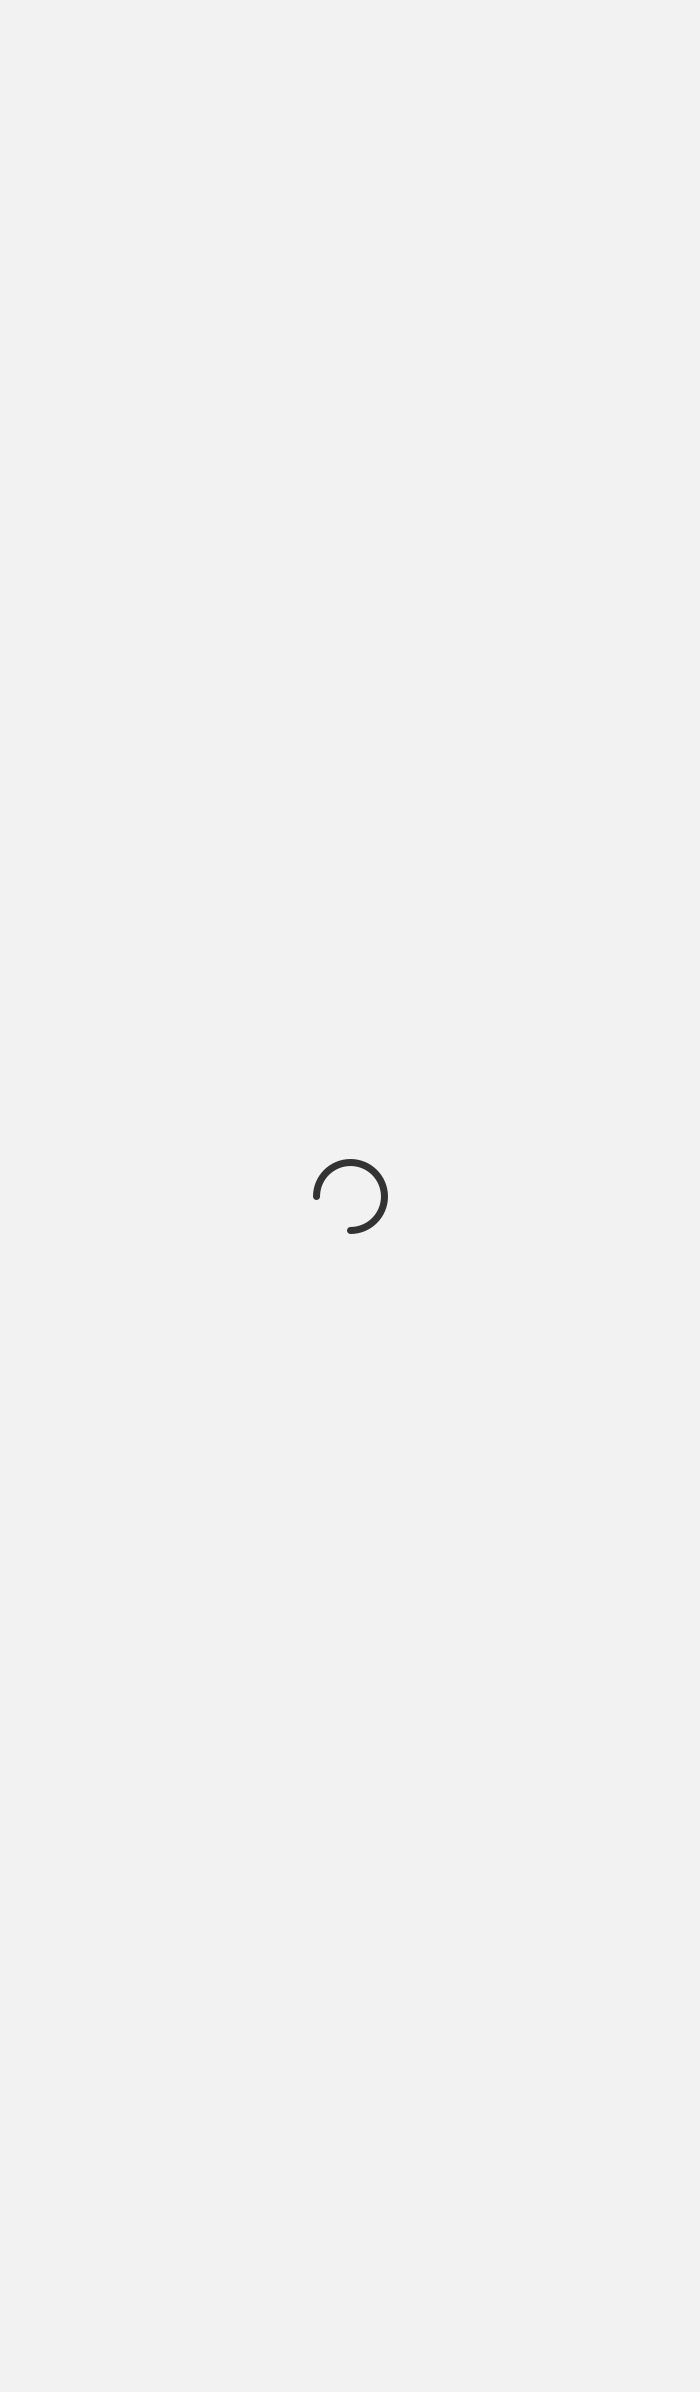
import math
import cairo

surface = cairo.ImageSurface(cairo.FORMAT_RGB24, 700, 2392)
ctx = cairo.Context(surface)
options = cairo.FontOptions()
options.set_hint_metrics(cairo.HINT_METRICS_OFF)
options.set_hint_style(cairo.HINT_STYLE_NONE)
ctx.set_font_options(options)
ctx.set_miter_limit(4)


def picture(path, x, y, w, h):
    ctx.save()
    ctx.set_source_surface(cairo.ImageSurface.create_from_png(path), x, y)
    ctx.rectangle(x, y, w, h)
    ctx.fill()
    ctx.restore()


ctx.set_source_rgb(0.949, 0.949, 0.949)
ctx.paint()
picture("img1.png", 313, 1159, 75, 75)
surface.write_to_png("page.png")
